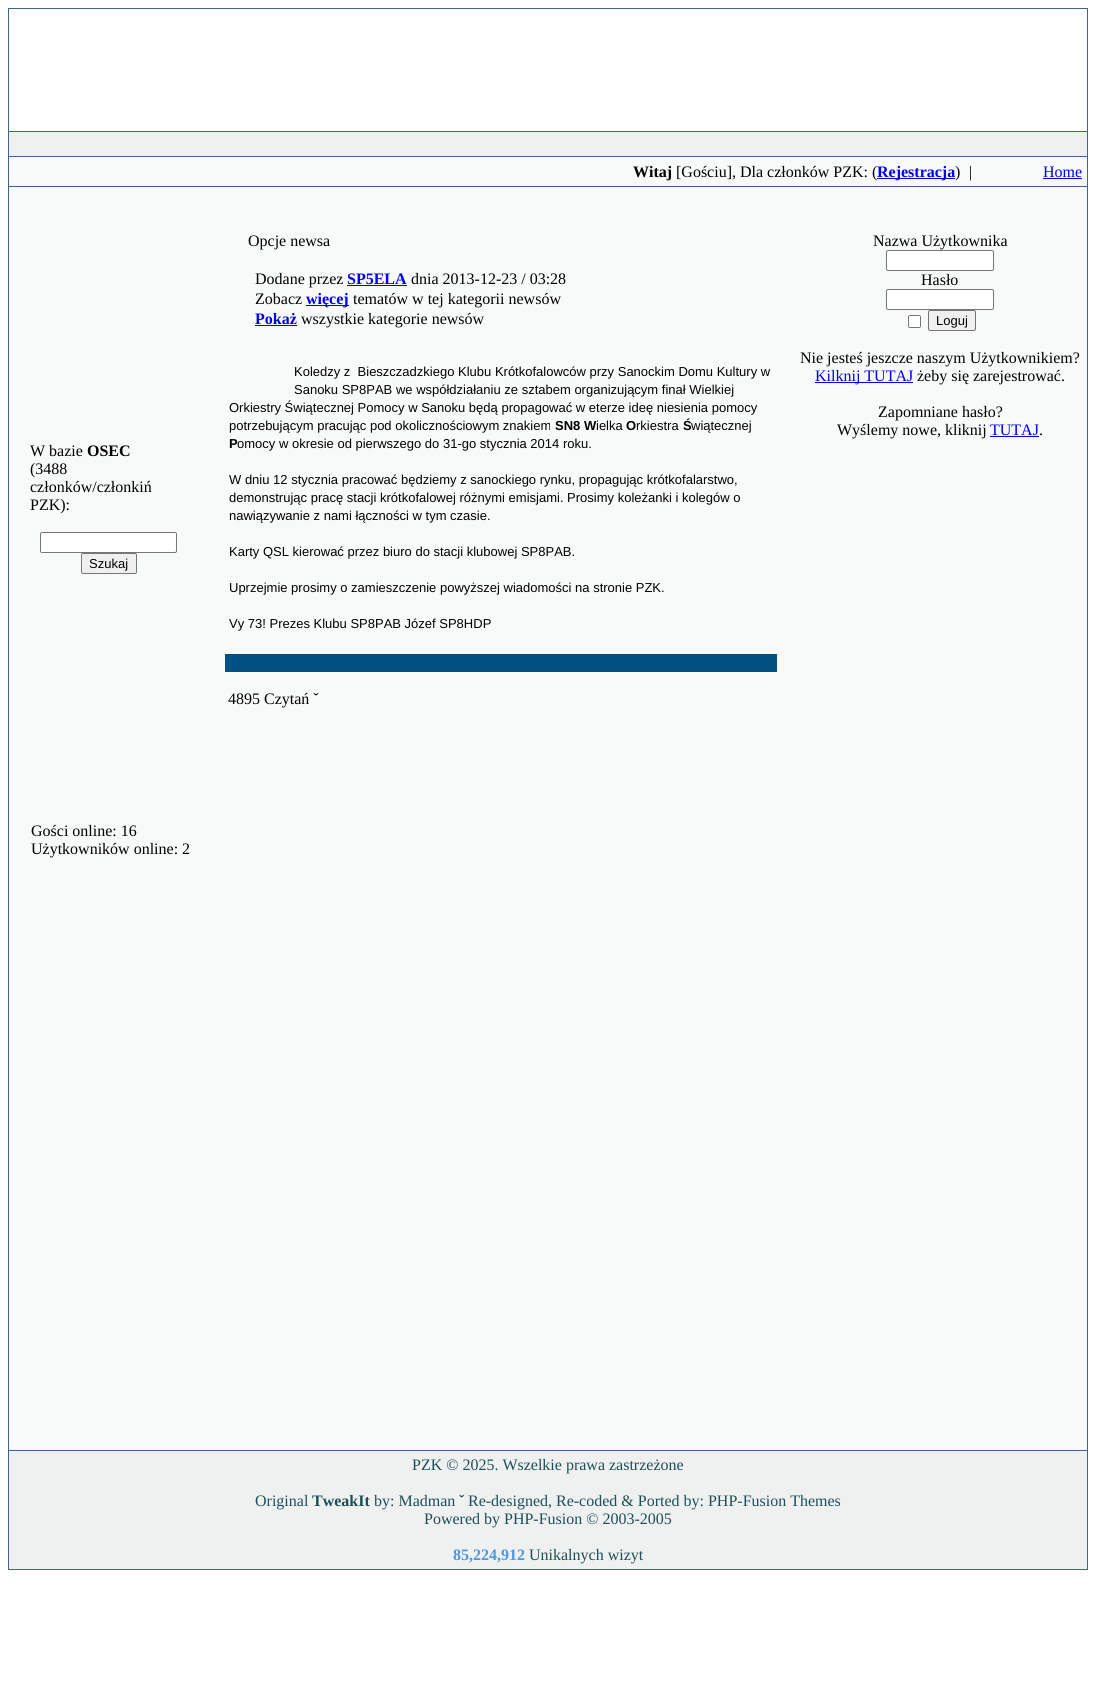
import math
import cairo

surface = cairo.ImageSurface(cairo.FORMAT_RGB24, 1096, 1684)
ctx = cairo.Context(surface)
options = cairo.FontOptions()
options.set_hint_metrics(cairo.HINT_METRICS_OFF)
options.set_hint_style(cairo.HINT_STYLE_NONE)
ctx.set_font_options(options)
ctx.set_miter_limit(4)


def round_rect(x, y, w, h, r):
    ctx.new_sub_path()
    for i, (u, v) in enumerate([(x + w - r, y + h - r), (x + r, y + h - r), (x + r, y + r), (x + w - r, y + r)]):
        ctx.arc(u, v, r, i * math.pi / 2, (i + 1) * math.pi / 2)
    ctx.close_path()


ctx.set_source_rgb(1, 1, 1)
ctx.paint()
ctx.set_source_rgb(0.247, 0.388, 0.576)
ctx.rectangle(8, 8, 1080, 1562)
ctx.fill()
ctx.set_source_rgb(1, 1, 1)
ctx.rectangle(9, 9, 1078, 122)
ctx.fill()
ctx.set_source_rgb(0.937, 0.945, 0.945)
ctx.rectangle(9, 132, 1078, 24)
ctx.fill()
ctx.set_source_rgb(0.969, 0.973, 0.973)
ctx.rectangle(9, 157, 1078, 29)
ctx.fill()
ctx.select_font_face("Liberation Serif", cairo.FONT_SLANT_NORMAL, cairo.FONT_WEIGHT_BOLD)
ctx.set_font_size(16)
ctx.set_source_rgb(0, 0, 0)
ctx.move_to(633, 177)
ctx.show_text("Witaj")
ctx.select_font_face("Liberation Serif")
ctx.move_to(676, 177)
ctx.show_text("[Gościu], Dla członków PZK: (")
ctx.set_source_rgb(0, 0, 0.933)
ctx.rectangle(877, 178, 78, 1)
ctx.fill()
ctx.select_font_face("Liberation Serif", cairo.FONT_SLANT_NORMAL, cairo.FONT_WEIGHT_BOLD)
ctx.move_to(877, 177)
ctx.show_text("Rejestracja")
ctx.select_font_face("Liberation Serif")
ctx.set_source_rgb(0, 0, 0)
ctx.move_to(955, 177)
ctx.show_text(")")
ctx.move_to(969, 177)
ctx.show_text("|")
ctx.set_source_rgb(0, 0, 0.933)
ctx.move_to(1043, 177)
ctx.show_text("Home")
ctx.rectangle(1043, 178, 39, 1)
ctx.fill()
ctx.set_source_rgb(0.969, 0.973, 0.973)
ctx.rectangle(9, 187, 1078, 1263)
ctx.fill()
ctx.set_source_rgb(0, 0, 0)
ctx.move_to(30, 456)
ctx.show_text("W bazie")
ctx.select_font_face("Liberation Serif", cairo.FONT_SLANT_NORMAL, cairo.FONT_WEIGHT_BOLD)
ctx.move_to(87, 456)
ctx.show_text("OSEC")
ctx.select_font_face("Liberation Serif")
ctx.move_to(30, 474)
ctx.show_text("(3488")
ctx.move_to(30, 492)
ctx.show_text("członków/członkiń")
ctx.move_to(30, 510)
ctx.show_text("PZK):")
ctx.set_source_rgb(1, 1, 1)
round_rect(40.5, 532.5, 136, 20, 1.5)
ctx.fill_preserve()
ctx.set_source_rgb(0.463, 0.463, 0.463)
ctx.set_line_width(1)
ctx.stroke()
ctx.set_source_rgb(0.937, 0.937, 0.937)
round_rect(81.5, 553.5, 55, 20, 1.5)
ctx.fill_preserve()
ctx.set_source_rgb(0.463, 0.463, 0.463)
ctx.stroke()
ctx.select_font_face("Liberation Sans")
ctx.set_font_size(13)
ctx.set_source_rgb(0, 0, 0)
ctx.move_to(89, 568)
ctx.show_text("Szukaj")
ctx.select_font_face("Liberation Serif")
ctx.set_font_size(16)
ctx.move_to(31, 836)
ctx.show_text("Gości online: 16")
ctx.move_to(31, 854)
ctx.show_text("Użytkowników online: 2")
ctx.move_to(248, 246)
ctx.show_text("Opcje newsa")
ctx.move_to(255, 284)
ctx.show_text("Dodane przez")
ctx.select_font_face("Liberation Serif", cairo.FONT_SLANT_NORMAL, cairo.FONT_WEIGHT_BOLD)
ctx.set_source_rgb(0, 0, 0.933)
ctx.move_to(347, 284)
ctx.show_text("SP5ELA")
ctx.rectangle(347, 285, 60, 1)
ctx.fill()
ctx.select_font_face("Liberation Serif")
ctx.set_source_rgb(0, 0, 0)
ctx.move_to(411, 284)
ctx.show_text("dnia 2013-12-23 / 03:28")
ctx.move_to(255, 304)
ctx.show_text("Zobacz")
ctx.set_source_rgb(0, 0, 0.933)
ctx.rectangle(306, 305, 43, 1)
ctx.fill()
ctx.select_font_face("Liberation Serif", cairo.FONT_SLANT_NORMAL, cairo.FONT_WEIGHT_BOLD)
ctx.move_to(306, 304)
ctx.show_text("więcej")
ctx.select_font_face("Liberation Serif")
ctx.set_source_rgb(0, 0, 0)
ctx.move_to(353, 304)
ctx.show_text("tematów w tej kategorii newsów")
ctx.select_font_face("Liberation Serif", cairo.FONT_SLANT_NORMAL, cairo.FONT_WEIGHT_BOLD)
ctx.set_source_rgb(0, 0, 0.933)
ctx.move_to(255, 324)
ctx.show_text("Pokaż")
ctx.rectangle(255, 325, 42, 1)
ctx.fill()
ctx.select_font_face("Liberation Serif")
ctx.set_source_rgb(0, 0, 0)
ctx.move_to(301, 324)
ctx.show_text("wszystkie kategorie newsów")
ctx.select_font_face("Liberation Sans")
ctx.set_font_size(13)
ctx.move_to(294, 376)
ctx.show_text("Koledzy z  Bieszczadzkiego Klubu Krótkofalowców przy Sanockim Domu Kultury w")
ctx.move_to(294, 394)
ctx.show_text("Sanoku SP8PAB we współdziałaniu ze sztabem organizującym finał Wielkiej")
ctx.move_to(229, 412)
ctx.show_text("Orkiestry Świątecznej Pomocy w Sanoku będą propagować w eterze ideę niesienia pomocy")
ctx.move_to(229, 430)
ctx.show_text("potrzebującym pracując pod okolicznościowym znakiem")
ctx.select_font_face("Liberation Sans", cairo.FONT_SLANT_NORMAL, cairo.FONT_WEIGHT_BOLD)
ctx.move_to(555, 430)
ctx.show_text("SN8 W")
ctx.select_font_face("Liberation Sans")
ctx.move_to(596, 430)
ctx.show_text("ielka")
ctx.select_font_face("Liberation Sans", cairo.FONT_SLANT_NORMAL, cairo.FONT_WEIGHT_BOLD)
ctx.move_to(626, 430)
ctx.show_text("O")
ctx.select_font_face("Liberation Sans")
ctx.move_to(636, 430)
ctx.show_text("rkiestra")
ctx.select_font_face("Liberation Sans", cairo.FONT_SLANT_NORMAL, cairo.FONT_WEIGHT_BOLD)
ctx.move_to(683, 430)
ctx.show_text("Ś")
ctx.select_font_face("Liberation Sans")
ctx.move_to(691, 430)
ctx.show_text("wiątecznej")
ctx.select_font_face("Liberation Sans", cairo.FONT_SLANT_NORMAL, cairo.FONT_WEIGHT_BOLD)
ctx.move_to(229, 448)
ctx.show_text("P")
ctx.select_font_face("Liberation Sans")
ctx.move_to(237, 448)
ctx.show_text("omocy w okresie od pierwszego do 31-go stycznia 2014 roku.")
ctx.move_to(229, 484)
ctx.show_text("W dniu 12 stycznia pracować będziemy z sanockiego rynku, propagując krótkofalarstwo,")
ctx.move_to(229, 502)
ctx.show_text("demonstrując pracę stacji krótkofalowej różnymi emisjami. Prosimy koleżanki i kolegów o")
ctx.move_to(229, 520)
ctx.show_text("nawiązywanie z nami łączności w tym czasie.")
ctx.move_to(229, 556)
ctx.show_text("Karty QSL kierować przez biuro do stacji klubowej SP8PAB.")
ctx.move_to(229, 592)
ctx.show_text("Uprzejmie prosimy o zamieszczenie powyższej wiadomości na stronie PZK.")
ctx.move_to(229, 628)
ctx.show_text("Vy 73! Prezes Klubu SP8PAB Józef SP8HDP")
ctx.set_source_rgb(0, 0.314, 0.502)
ctx.rectangle(225, 654, 552, 18)
ctx.fill()
ctx.select_font_face("Liberation Serif")
ctx.set_font_size(16)
ctx.set_source_rgb(0, 0, 0)
ctx.move_to(228, 704)
ctx.show_text("4895 Czytań ˇ")
ctx.move_to(873, 246)
ctx.show_text("Nazwa Użytkownika")
ctx.set_source_rgb(1, 1, 1)
round_rect(886.5, 250.5, 107, 20, 1.5)
ctx.fill_preserve()
ctx.set_source_rgb(0.463, 0.463, 0.463)
ctx.stroke()
ctx.set_source_rgb(0, 0, 0)
ctx.move_to(921, 285)
ctx.show_text("Hasło")
ctx.set_source_rgb(1, 1, 1)
round_rect(886.5, 289.5, 107, 20, 1.5)
ctx.fill_preserve()
ctx.set_source_rgb(0.463, 0.463, 0.463)
ctx.stroke()
ctx.set_source_rgb(1, 1, 1)
round_rect(908.5, 315.5, 12, 12, 1.5)
ctx.fill_preserve()
ctx.set_source_rgb(0.463, 0.463, 0.463)
ctx.stroke()
ctx.set_source_rgb(0.937, 0.937, 0.937)
round_rect(928.5, 310.5, 47, 20, 1.5)
ctx.fill_preserve()
ctx.set_source_rgb(0.463, 0.463, 0.463)
ctx.stroke()
ctx.select_font_face("Liberation Sans")
ctx.set_font_size(13)
ctx.set_source_rgb(0, 0, 0)
ctx.move_to(936, 325)
ctx.show_text("Loguj")
ctx.select_font_face("Liberation Serif")
ctx.set_font_size(16)
ctx.move_to(800, 363)
ctx.show_text("Nie jesteś jeszcze naszym Użytkownikiem?")
ctx.set_source_rgb(0, 0, 0.933)
ctx.rectangle(815, 382, 98, 1)
ctx.fill()
ctx.move_to(815, 381)
ctx.show_text("Kilknij TUTAJ")
ctx.set_source_rgb(0, 0, 0)
ctx.move_to(917, 381)
ctx.show_text("żeby się zarejestrować.")
ctx.move_to(878, 417)
ctx.show_text("Zapomniane hasło?")
ctx.move_to(837, 435)
ctx.show_text("Wyślemy nowe, kliknij")
ctx.set_source_rgb(0, 0, 0.933)
ctx.move_to(990, 435)
ctx.show_text("TUTAJ")
ctx.rectangle(990, 436, 49, 1)
ctx.fill()
ctx.set_source_rgb(0, 0, 0)
ctx.move_to(1039, 435)
ctx.show_text(".")
ctx.set_source_rgb(0.937, 0.945, 0.945)
ctx.rectangle(9, 1451, 1078, 118)
ctx.fill()
ctx.set_source_rgb(0.114, 0.306, 0.341)
ctx.move_to(412, 1470)
ctx.show_text("PZK © 2025. Wszelkie prawa zastrzeżone")
ctx.move_to(255, 1506)
ctx.show_text("Original")
ctx.select_font_face("Liberation Serif", cairo.FONT_SLANT_NORMAL, cairo.FONT_WEIGHT_BOLD)
ctx.move_to(312, 1506)
ctx.show_text("TweakIt")
ctx.select_font_face("Liberation Serif")
ctx.move_to(374, 1506)
ctx.show_text("by: Madman")
ctx.select_font_face("Liberation Serif", cairo.FONT_SLANT_NORMAL, cairo.FONT_WEIGHT_BOLD)
ctx.move_to(459, 1506)
ctx.show_text("ˇ")
ctx.select_font_face("Liberation Serif")
ctx.move_to(468, 1506)
ctx.show_text("Re-designed, Re-coded & Ported by: PHP-Fusion Themes")
ctx.move_to(424, 1524)
ctx.show_text("Powered by PHP-Fusion © 2003-2005")
ctx.select_font_face("Liberation Serif", cairo.FONT_SLANT_NORMAL, cairo.FONT_WEIGHT_BOLD)
ctx.set_source_rgb(0.29, 0.596, 0.882)
ctx.move_to(453, 1560)
ctx.show_text("85,224,912")
ctx.select_font_face("Liberation Serif")
ctx.set_source_rgb(0.114, 0.306, 0.341)
ctx.move_to(529, 1560)
ctx.show_text("Unikalnych wizyt")
surface.write_to_png("page.png")
